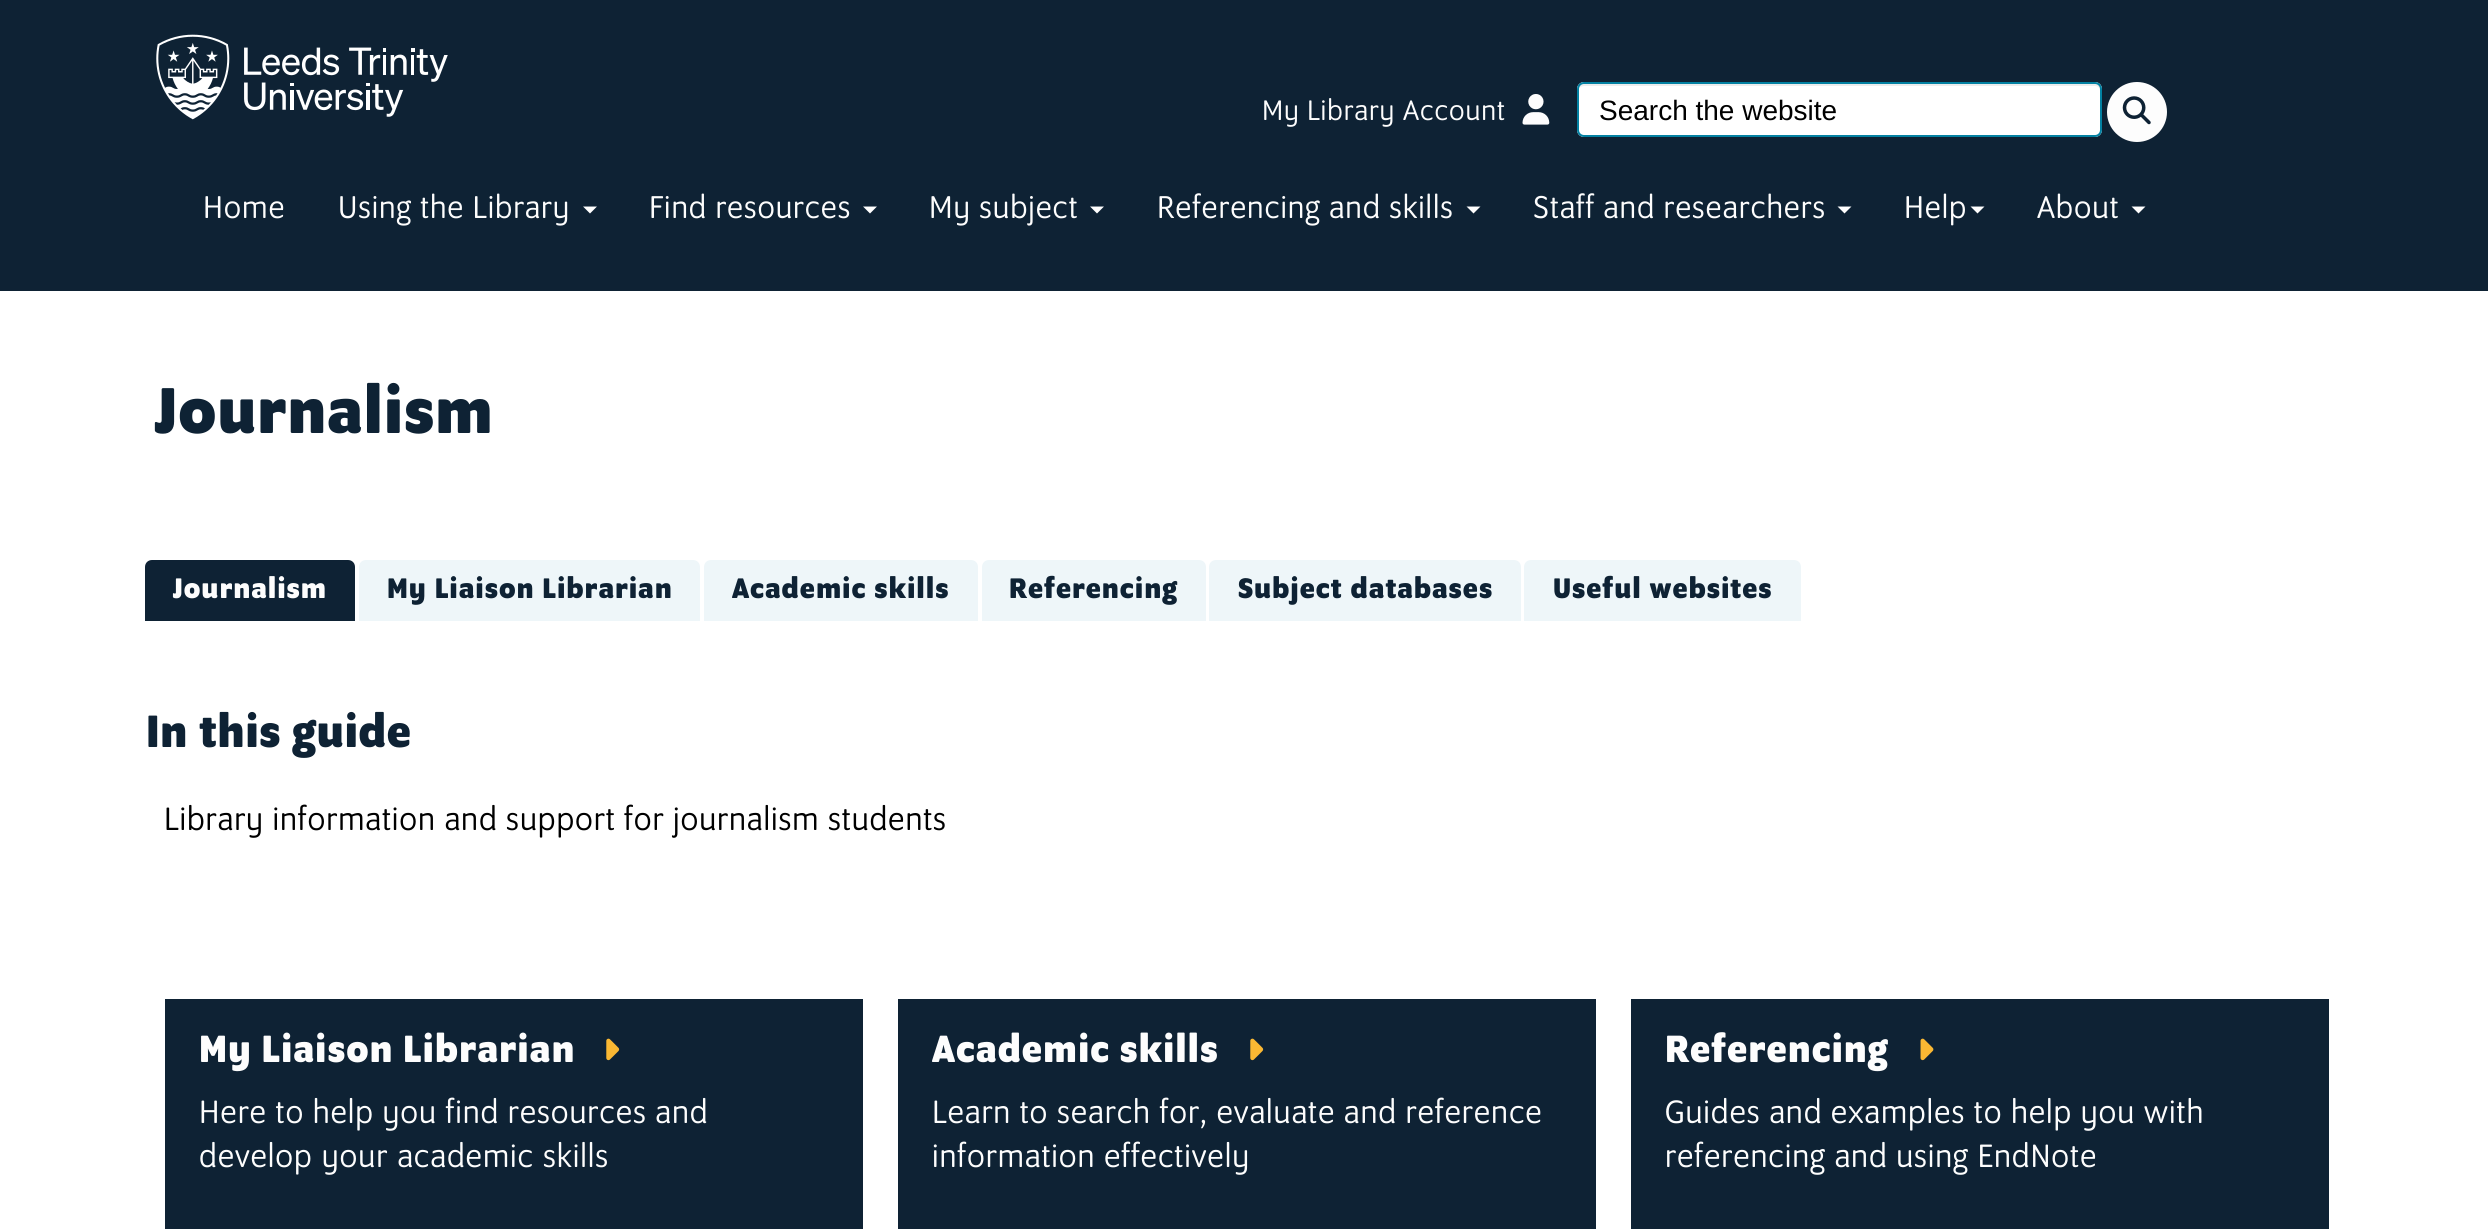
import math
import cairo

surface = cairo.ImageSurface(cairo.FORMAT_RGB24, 2488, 1229)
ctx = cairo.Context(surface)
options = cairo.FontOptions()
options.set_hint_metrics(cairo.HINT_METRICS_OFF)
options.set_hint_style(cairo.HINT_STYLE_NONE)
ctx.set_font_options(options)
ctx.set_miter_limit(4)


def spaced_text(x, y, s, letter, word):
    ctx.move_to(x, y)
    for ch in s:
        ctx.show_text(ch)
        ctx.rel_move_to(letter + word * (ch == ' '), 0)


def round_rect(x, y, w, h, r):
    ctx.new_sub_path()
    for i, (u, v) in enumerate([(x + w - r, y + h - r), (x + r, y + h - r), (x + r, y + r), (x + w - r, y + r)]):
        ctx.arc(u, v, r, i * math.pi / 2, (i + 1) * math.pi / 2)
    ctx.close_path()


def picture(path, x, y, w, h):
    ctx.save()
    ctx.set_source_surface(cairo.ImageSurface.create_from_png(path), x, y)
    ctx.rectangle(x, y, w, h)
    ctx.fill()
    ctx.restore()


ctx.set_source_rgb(1, 1, 1)
ctx.paint()
ctx.set_source_rgb(0.055, 0.133, 0.204)
ctx.rectangle(0, 0, 2488, 291)
ctx.fill()
picture("img1.png", 156, 34, 292, 86)
ctx.select_font_face("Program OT")
ctx.set_font_size(30.6)
ctx.set_source_rgb(0.992, 0.992, 0.992)
spaced_text(1262, 120, "My", 0.92, 0)
spaced_text(1307, 120, "Library Account", 0.92, 1.5)
picture("img2.png", 1522, 94, 28, 31)
ctx.set_source_rgb(1, 1, 1)
round_rect(1577, 82, 525, 55, 7)
ctx.fill()
ctx.set_source_rgb(0.925, 0.925, 0.925)
ctx.new_path()
ctx.move_to(1584, 86)
ctx.line_to(2095, 86)
ctx.curve_to(2098, 86, 2100, 88, 2100, 91)
ctx.line_to(2100, 89)
ctx.curve_to(2100, 86, 2098, 84, 2095, 84)
ctx.line_to(1584, 84)
ctx.curve_to(1582, 84, 1579, 86, 1579, 88)
ctx.curve_to(1580, 87, 1582, 86, 1584, 86)
ctx.close_path()
ctx.fill()
round_rect(1578, 83, 523, 53, 6)
ctx.set_source_rgb(0.012, 0.506, 0.635)
ctx.stroke()
ctx.select_font_face("Liberation Sans")
ctx.set_font_size(28)
ctx.set_source_rgb(0, 0, 0)
ctx.move_to(1599, 120)
ctx.show_text("Search the website")
ctx.set_source_rgb(0.992, 0.992, 0.992)
ctx.new_path()
ctx.arc(2137, 112, 29, 0, 2 * math.pi)
ctx.fill_preserve()
ctx.stroke()
picture("img3.png", 2122, 96, 29, 29)
ctx.select_font_face("Program OT")
ctx.set_font_size(34.1)
spaced_text(203, 218, "Home", 0.92, 0)
spaced_text(338, 218, "Using the Library", 0.92, 1.5)
ctx.set_source_rgb(1, 1, 1)
ctx.new_path()
ctx.move_to(583, 206.5)
ctx.line_to(597, 206.5)
ctx.line_to(590, 213.5)
ctx.close_path()
ctx.fill()
ctx.set_source_rgb(0.992, 0.992, 0.992)
spaced_text(649, 218, "Find resources", 0.92, 1.5)
ctx.set_source_rgb(1, 1, 1)
ctx.new_path()
ctx.move_to(863, 206.5)
ctx.line_to(877, 206.5)
ctx.line_to(870, 213.5)
ctx.close_path()
ctx.fill()
ctx.set_source_rgb(0.992, 0.992, 0.992)
spaced_text(929, 218, "My subject", 0.92, 1.5)
ctx.set_source_rgb(1, 1, 1)
ctx.new_path()
ctx.move_to(1090, 206.5)
ctx.line_to(1104, 206.5)
ctx.line_to(1097, 213.5)
ctx.close_path()
ctx.fill()
ctx.set_source_rgb(0.992, 0.992, 0.992)
spaced_text(1157, 218, "Referencing and skills", 0.92, 1.5)
ctx.set_source_rgb(1, 1, 1)
ctx.new_path()
ctx.move_to(1466.5, 206.5)
ctx.line_to(1480.5, 206.5)
ctx.line_to(1473.5, 213.5)
ctx.close_path()
ctx.fill()
ctx.set_source_rgb(0.992, 0.992, 0.992)
spaced_text(1533, 218, "Staff and researchers", 0.92, 1.5)
ctx.set_source_rgb(1, 1, 1)
ctx.new_path()
ctx.move_to(1837.5, 206.5)
ctx.line_to(1851.5, 206.5)
ctx.line_to(1844.5, 213.5)
ctx.close_path()
ctx.fill()
ctx.set_source_rgb(0.992, 0.992, 0.992)
spaced_text(1904, 218, "Help", 0.92, 0)
ctx.set_source_rgb(1, 1, 1)
ctx.new_path()
ctx.move_to(1970.5, 206.5)
ctx.line_to(1984.5, 206.5)
ctx.line_to(1977.5, 213.5)
ctx.close_path()
ctx.fill()
ctx.set_source_rgb(0.992, 0.992, 0.992)
spaced_text(2037, 218, "About", 0.92, 0)
ctx.set_source_rgb(1, 1, 1)
ctx.new_path()
ctx.move_to(2131.5, 206.5)
ctx.line_to(2145.5, 206.5)
ctx.line_to(2138.5, 213.5)
ctx.close_path()
ctx.fill()
ctx.select_font_face("Program OT", cairo.FONT_SLANT_NORMAL, cairo.FONT_WEIGHT_BOLD)
ctx.set_font_size(70)
ctx.set_source_rgb(0.055, 0.133, 0.204)
spaced_text(155, 433, "Journalism", 0.75, 0)
ctx.new_path()
ctx.move_to(152, 560)
ctx.line_to(348, 560)
ctx.curve_to(352, 560, 355, 563, 355, 567)
ctx.line_to(355, 621)
ctx.line_to(145, 621)
ctx.line_to(145, 567)
ctx.curve_to(145, 563, 148, 560, 152, 560)
ctx.close_path()
ctx.fill()
ctx.set_font_size(30.6)
ctx.set_source_rgb(0.992, 0.992, 0.992)
spaced_text(173, 598, "Journalism", 0.92, 0)
ctx.set_source_rgb(0.933, 0.961, 0.976)
ctx.new_path()
ctx.move_to(366, 560)
ctx.line_to(693, 560)
ctx.curve_to(697, 560, 700, 563, 700, 567)
ctx.line_to(700, 621)
ctx.line_to(359, 621)
ctx.line_to(359, 567)
ctx.curve_to(359, 563, 362, 560, 366, 560)
ctx.close_path()
ctx.fill()
ctx.set_source_rgb(0.055, 0.133, 0.204)
spaced_text(387, 598, "My Liaison Librarian", 0.92, 1.5)
ctx.set_source_rgb(0.933, 0.961, 0.976)
ctx.new_path()
ctx.move_to(711, 560)
ctx.line_to(971, 560)
ctx.curve_to(975, 560, 978, 563, 978, 567)
ctx.line_to(978, 621)
ctx.line_to(704, 621)
ctx.line_to(704, 567)
ctx.curve_to(704, 563, 707, 560, 711, 560)
ctx.close_path()
ctx.fill()
ctx.set_source_rgb(0.055, 0.133, 0.204)
spaced_text(732, 598, "Academic skills", 0.92, 1.5)
ctx.set_source_rgb(0.933, 0.961, 0.976)
ctx.new_path()
ctx.move_to(989, 560)
ctx.line_to(1199, 560)
ctx.curve_to(1203, 560, 1206, 563, 1206, 567)
ctx.line_to(1206, 621)
ctx.line_to(982, 621)
ctx.line_to(982, 567)
ctx.curve_to(982, 563, 985, 560, 989, 560)
ctx.close_path()
ctx.fill()
ctx.set_source_rgb(0.055, 0.133, 0.204)
spaced_text(1009, 598, "Referencing", 0.92, 0)
ctx.set_source_rgb(0.933, 0.961, 0.976)
ctx.new_path()
ctx.move_to(1216, 560)
ctx.line_to(1514, 560)
ctx.curve_to(1518, 560, 1521, 563, 1521, 567)
ctx.line_to(1521, 621)
ctx.line_to(1209, 621)
ctx.line_to(1209, 567)
ctx.curve_to(1209, 563, 1212, 560, 1216, 560)
ctx.close_path()
ctx.fill()
ctx.set_source_rgb(0.055, 0.133, 0.204)
spaced_text(1238, 598, "Subject databases", 0.92, 1.5)
ctx.set_source_rgb(0.933, 0.961, 0.976)
ctx.new_path()
ctx.move_to(1531, 560)
ctx.line_to(1794, 560)
ctx.curve_to(1798, 560, 1801, 563, 1801, 567)
ctx.line_to(1801, 621)
ctx.line_to(1524, 621)
ctx.line_to(1524, 567)
ctx.curve_to(1524, 563, 1527, 560, 1531, 560)
ctx.close_path()
ctx.fill()
ctx.set_source_rgb(0.055, 0.133, 0.204)
spaced_text(1553, 598, "Useful websites", 0.92, 1.5)
ctx.set_font_size(49)
spaced_text(146, 747, "In this guide", 0.5, 2)
ctx.select_font_face("Program OT")
ctx.set_font_size(35)
ctx.set_source_rgb(0, 0, 0)
spaced_text(164, 830, "Library information and support for journalism students", 0.92, 1.5)
ctx.set_source_rgb(0.055, 0.133, 0.204)
ctx.rectangle(165, 999, 698, 230)
ctx.fill()
ctx.select_font_face("Program OT", cairo.FONT_SLANT_NORMAL, cairo.FONT_WEIGHT_BOLD)
ctx.set_font_size(41.1)
ctx.set_source_rgb(0.992, 0.992, 0.992)
spaced_text(199, 1062, "My Liaison Librarian", 0.92, 1.5)
picture("img4.png", 606, 1038, 14, 23)
ctx.select_font_face("Program OT")
ctx.set_font_size(35)
spaced_text(199, 1123, "Here to help you find resources and", 0.92, 1.5)
spaced_text(199, 1167, "develop your academic skills", 0.92, 2)
ctx.set_source_rgb(0.055, 0.133, 0.204)
ctx.rectangle(898, 999, 698, 230)
ctx.fill()
ctx.select_font_face("Program OT", cairo.FONT_SLANT_NORMAL, cairo.FONT_WEIGHT_BOLD)
ctx.set_font_size(41.1)
ctx.set_source_rgb(0.992, 0.992, 0.992)
spaced_text(932, 1062, "Academic skills", 0.92, 1.5)
picture("img4.png", 1250, 1038, 14, 23)
ctx.select_font_face("Program OT")
ctx.set_font_size(35)
spaced_text(932, 1123, "Learn to search for, evaluate and reference", 0.92, 1.5)
spaced_text(932, 1167, "information effectively", 0.92, 1.5)
ctx.set_source_rgb(0.055, 0.133, 0.204)
ctx.rectangle(1631, 999, 698, 230)
ctx.fill()
ctx.select_font_face("Program OT", cairo.FONT_SLANT_NORMAL, cairo.FONT_WEIGHT_BOLD)
ctx.set_font_size(41.1)
ctx.set_source_rgb(0.992, 0.992, 0.992)
spaced_text(1665, 1062, "Referencing", 0.92, 0)
picture("img5.png", 1920, 1038, 14, 23)
ctx.select_font_face("Program OT")
ctx.set_font_size(35)
spaced_text(1665, 1123, "Guides and examples to help you with", 0.92, 1.5)
spaced_text(1665, 1167, "referencing and using EndNote", 0.92, 1.5)
surface.write_to_png("page.png")
